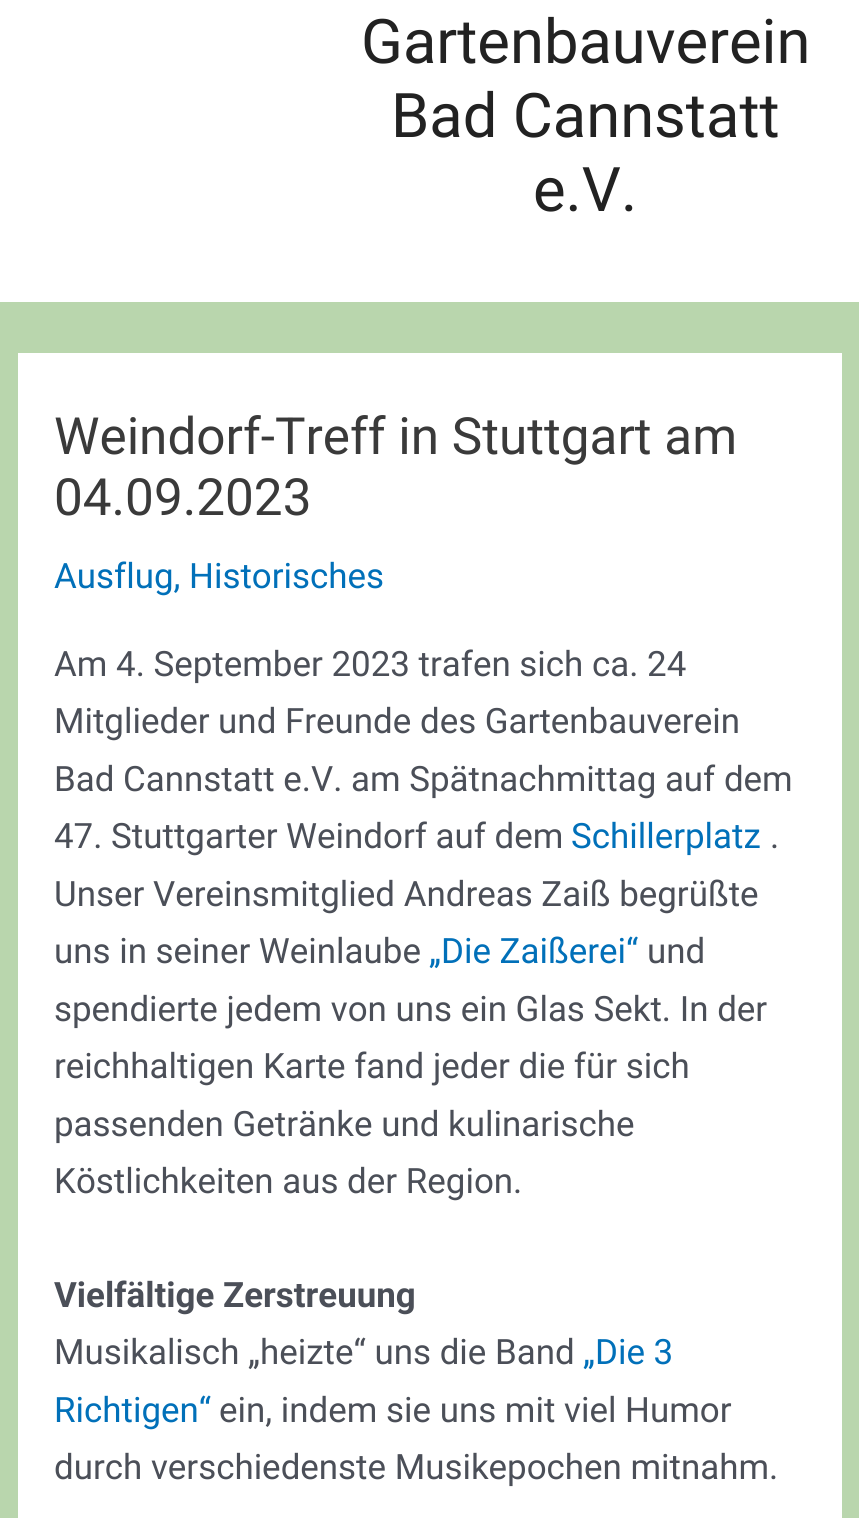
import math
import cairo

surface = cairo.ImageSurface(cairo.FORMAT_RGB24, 859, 1518)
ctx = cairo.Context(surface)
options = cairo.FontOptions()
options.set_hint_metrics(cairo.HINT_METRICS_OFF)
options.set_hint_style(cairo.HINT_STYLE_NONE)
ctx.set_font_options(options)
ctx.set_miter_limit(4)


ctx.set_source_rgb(0.725, 0.839, 0.678)
ctx.paint()
ctx.set_source_rgb(1, 1, 1)
ctx.rectangle(0, 0, 859, 302)
ctx.fill()
ctx.select_font_face("Roboto")
ctx.set_font_size(61.5)
ctx.set_source_rgb(0.133, 0.133, 0.133)
ctx.move_to(361, 63)
ctx.show_text("Gartenbauverein")
ctx.move_to(391, 137)
ctx.show_text("Bad Cannstatt")
ctx.move_to(533, 211)
ctx.show_text("e.V.")
ctx.set_source_rgb(1, 1, 1)
ctx.rectangle(18, 353, 824, 1165)
ctx.fill()
ctx.set_font_size(51.25)
ctx.set_source_rgb(0.227, 0.227, 0.227)
ctx.move_to(54, 454)
ctx.show_text("Weindorf-Treff in Stuttgart am")
ctx.move_to(54, 515)
ctx.show_text("04.09.2023")
ctx.set_font_size(34.9)
ctx.set_source_rgb(0.004, 0.439, 0.725)
ctx.move_to(54, 588)
ctx.show_text("Ausflug, Historisches")
ctx.set_source_rgb(0.294, 0.31, 0.345)
ctx.move_to(54, 676)
ctx.show_text("Am 4. September 2023 trafen sich ca. 24")
ctx.move_to(54, 733)
ctx.show_text("Mitglieder und Freunde des Gartenbauverein")
ctx.move_to(54, 791)
ctx.show_text("Bad Cannstatt e.V. am Spätnachmittag auf dem")
ctx.move_to(54, 848)
ctx.show_text("47. Stuttgarter Weindorf auf dem")
ctx.set_source_rgb(0.004, 0.439, 0.725)
ctx.move_to(571, 848)
ctx.show_text("Schillerplatz")
ctx.set_source_rgb(0.294, 0.31, 0.345)
ctx.move_to(770, 848)
ctx.show_text(".")
ctx.move_to(54, 906)
ctx.show_text("Unser Vereinsmitglied Andreas Zaiß begrüßte")
ctx.move_to(54, 963)
ctx.show_text("uns in seiner Weinlaube")
ctx.set_source_rgb(0.004, 0.439, 0.725)
ctx.move_to(429, 963)
ctx.show_text("„Die Zaißerei“")
ctx.set_source_rgb(0.294, 0.31, 0.345)
ctx.move_to(647, 963)
ctx.show_text("und")
ctx.move_to(54, 1021)
ctx.show_text("spendierte jedem von uns ein Glas Sekt. In der")
ctx.move_to(54, 1078)
ctx.show_text("reichhaltigen Karte fand jeder die für sich")
ctx.move_to(54, 1136)
ctx.show_text("passenden Getränke und kulinarische")
ctx.move_to(54, 1193)
ctx.show_text("Köstlichkeiten aus der Region.")
ctx.select_font_face("Roboto", cairo.FONT_SLANT_NORMAL, cairo.FONT_WEIGHT_BOLD)
ctx.move_to(54, 1307)
ctx.show_text("Vielfältige Zerstreuung")
ctx.select_font_face("Roboto")
ctx.move_to(54, 1364)
ctx.show_text("Musikalisch „heizte“ uns die Band")
ctx.set_source_rgb(0.004, 0.439, 0.725)
ctx.move_to(583, 1364)
ctx.show_text("„Die 3")
ctx.move_to(54, 1422)
ctx.show_text("Richtigen“")
ctx.set_source_rgb(0.294, 0.31, 0.345)
ctx.move_to(219, 1422)
ctx.show_text("ein, indem sie uns mit viel Humor")
ctx.move_to(54, 1479)
ctx.show_text("durch verschiedenste Musikepochen mitnahm.")
surface.write_to_png("page.png")
